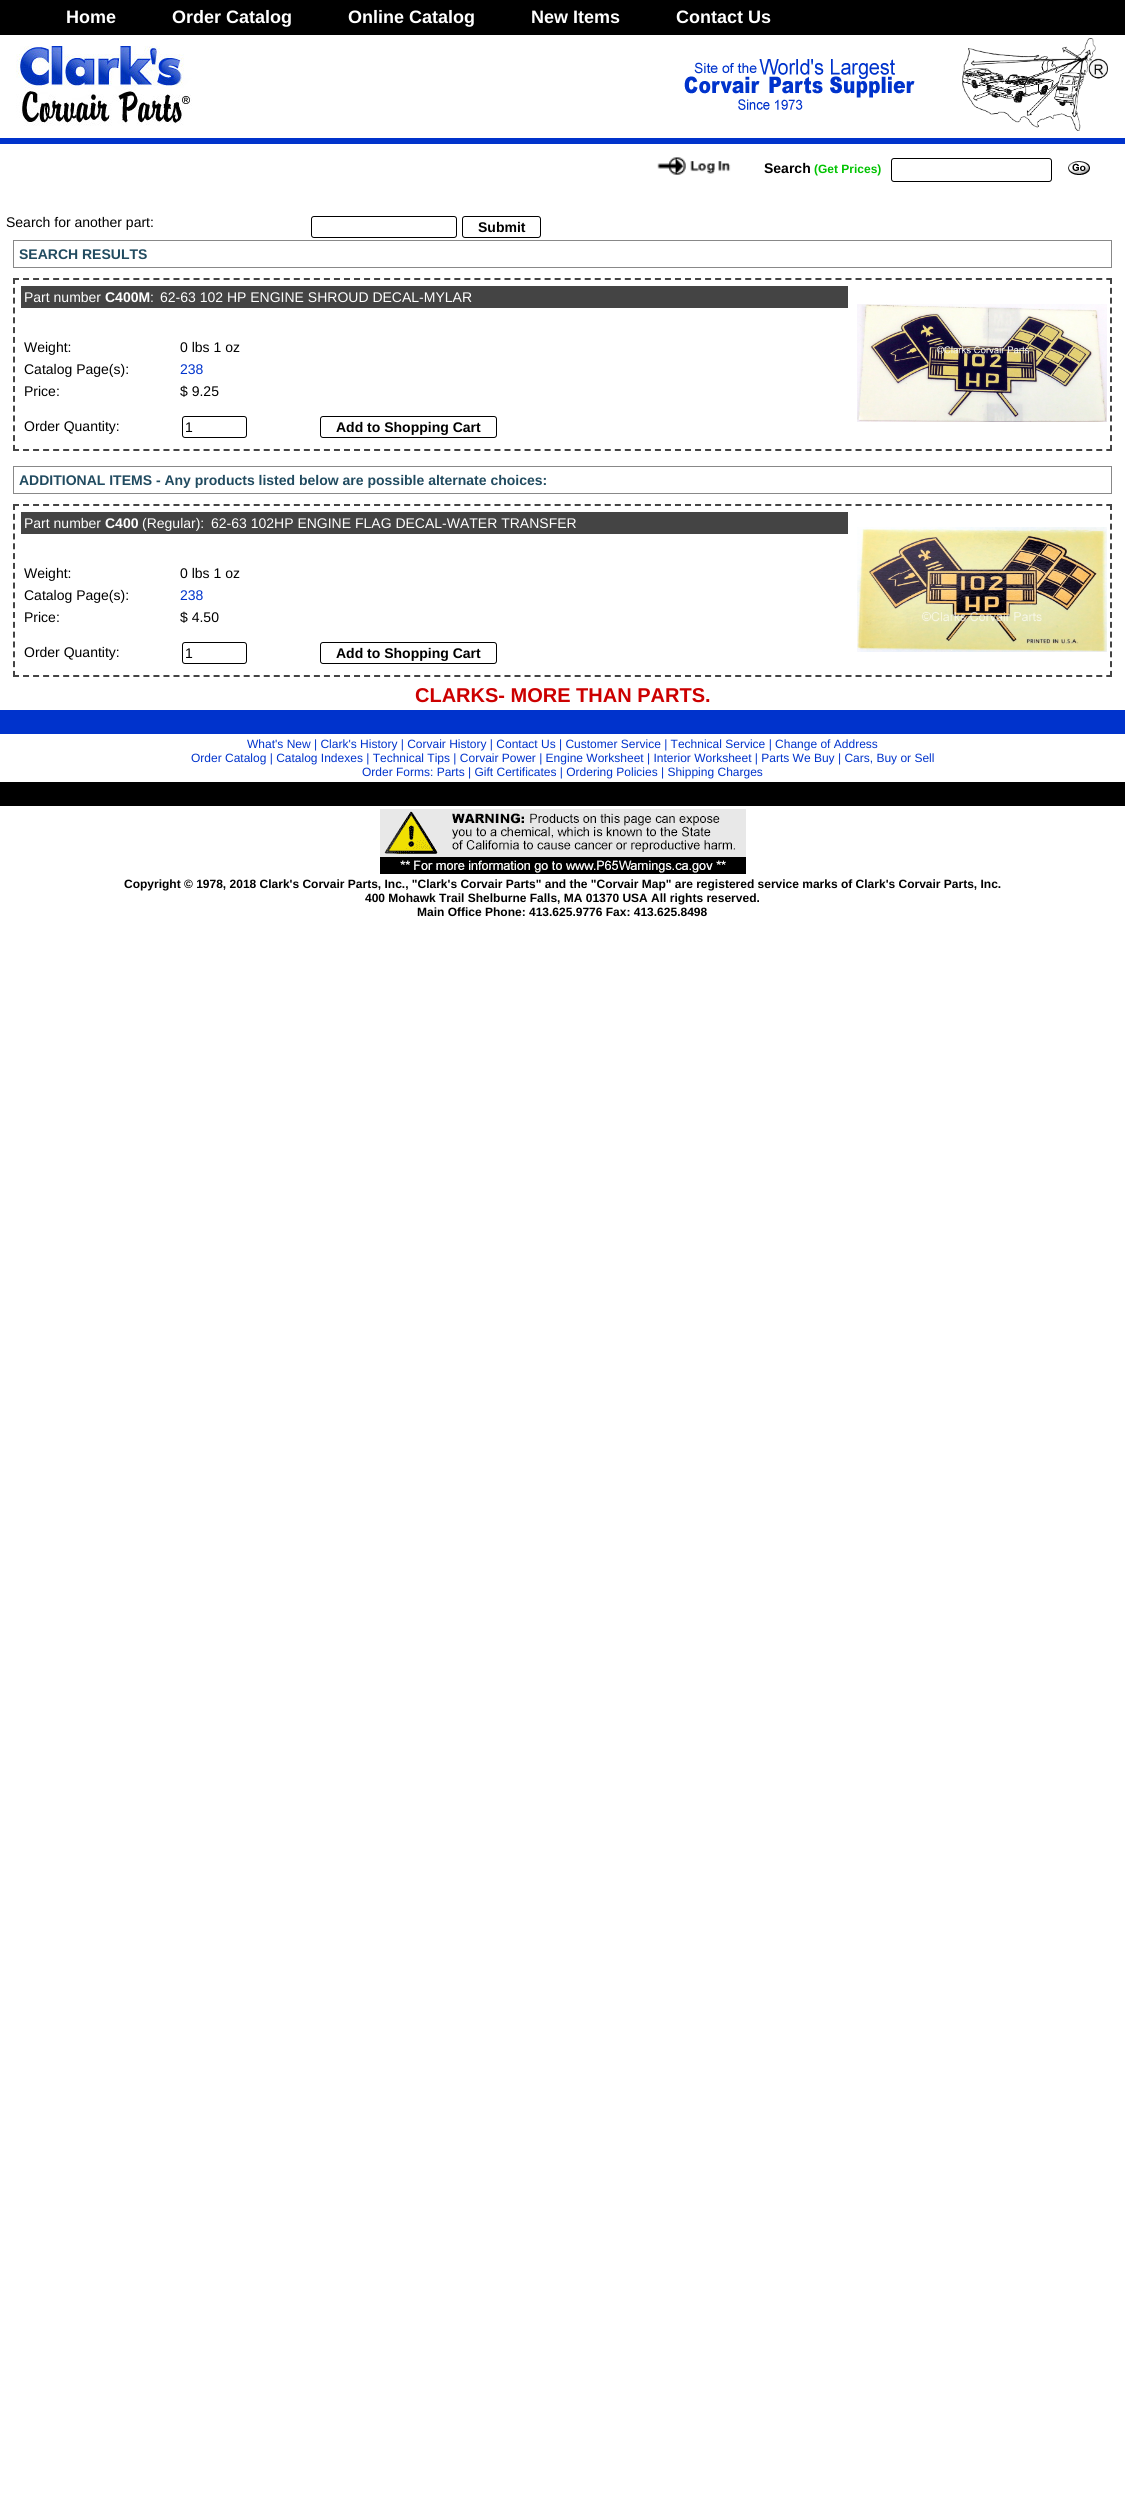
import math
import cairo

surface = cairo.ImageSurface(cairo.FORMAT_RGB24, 1125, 2512)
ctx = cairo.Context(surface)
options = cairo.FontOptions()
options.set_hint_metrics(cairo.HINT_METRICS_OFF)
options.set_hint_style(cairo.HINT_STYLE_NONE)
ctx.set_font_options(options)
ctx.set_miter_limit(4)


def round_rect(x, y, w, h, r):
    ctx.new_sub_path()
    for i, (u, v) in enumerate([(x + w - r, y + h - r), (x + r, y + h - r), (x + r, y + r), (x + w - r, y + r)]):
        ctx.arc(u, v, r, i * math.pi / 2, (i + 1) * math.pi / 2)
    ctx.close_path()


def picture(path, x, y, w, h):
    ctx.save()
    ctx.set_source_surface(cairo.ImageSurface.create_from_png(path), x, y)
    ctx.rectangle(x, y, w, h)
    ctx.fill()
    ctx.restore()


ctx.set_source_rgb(1, 1, 1)
ctx.paint()
ctx.set_source_rgb(0, 0, 0)
ctx.rectangle(0, 0, 1125, 35)
ctx.fill()
ctx.select_font_face("Liberation Sans", cairo.FONT_SLANT_NORMAL, cairo.FONT_WEIGHT_BOLD)
ctx.set_font_size(18)
ctx.set_source_rgb(1, 1, 1)
ctx.move_to(66, 23)
ctx.show_text("Home")
ctx.move_to(172, 23)
ctx.show_text("Order Catalog")
ctx.move_to(348, 23)
ctx.show_text("Online Catalog")
ctx.move_to(531, 23)
ctx.show_text("New Items")
ctx.move_to(676, 23)
ctx.show_text("Contact Us")
picture("img1.png", 16, 46, 176, 80)
picture("img2.png", 684, 59, 231, 51)
picture("img3.png", 962, 38, 147, 93)
ctx.set_source_rgb(0, 0.2, 0.8)
ctx.rectangle(0, 138, 1125, 6)
ctx.fill()
picture("img4.png", 657, 157, 74, 18)
ctx.set_font_size(14)
ctx.set_source_rgb(0, 0, 0)
ctx.move_to(764, 173)
ctx.show_text("Search")
ctx.set_font_size(12)
ctx.set_source_rgb(0, 0.765, 0)
ctx.move_to(814, 173)
ctx.show_text("(Get Prices)")
round_rect(891.5, 158.5, 160, 23, 2.5)
ctx.set_source_rgb(0, 0, 0)
ctx.set_line_width(1)
ctx.stroke()
picture("img5.png", 1068, 161, 22, 14)
ctx.select_font_face("Liberation Sans")
ctx.set_font_size(14)
ctx.move_to(6, 227)
ctx.show_text("Search for another part:")
round_rect(311.5, 216.5, 145, 21, 2.5)
ctx.stroke()
round_rect(462.5, 216.5, 78, 21, 2.5)
ctx.stroke()
ctx.select_font_face("Liberation Sans", cairo.FONT_SLANT_NORMAL, cairo.FONT_WEIGHT_BOLD)
ctx.move_to(478, 232)
ctx.show_text("Submit")
ctx.rectangle(13.5, 240.5, 1098, 27)
ctx.set_source_rgb(0.533, 0.533, 0.533)
ctx.stroke()
ctx.set_source_rgb(0.129, 0.294, 0.376)
ctx.move_to(19, 259)
ctx.show_text("SEARCH RESULTS")
ctx.new_path()
ctx.move_to(13, 279)
ctx.line_to(1112, 279)
ctx.set_source_rgb(0.267, 0.267, 0.267)
ctx.set_line_width(2)
ctx.set_dash([6, 4.03])
ctx.stroke()
ctx.new_path()
ctx.move_to(1111, 278)
ctx.line_to(1111, 451)
ctx.set_dash([6, 3.82])
ctx.stroke()
ctx.new_path()
ctx.move_to(13, 450)
ctx.line_to(1112, 450)
ctx.set_dash([6, 4.03])
ctx.stroke()
ctx.new_path()
ctx.move_to(14, 278)
ctx.line_to(14, 451)
ctx.set_dash([6, 3.82])
ctx.stroke()
ctx.rectangle(21, 286, 827, 22)
ctx.fill()
ctx.select_font_face("Liberation Sans")
ctx.set_source_rgb(1, 1, 1)
ctx.move_to(24, 302)
ctx.show_text("Part number")
ctx.select_font_face("Liberation Sans", cairo.FONT_SLANT_NORMAL, cairo.FONT_WEIGHT_BOLD)
ctx.move_to(105, 302)
ctx.show_text("C400M")
ctx.select_font_face("Liberation Sans")
ctx.move_to(150, 302)
ctx.show_text(":")
ctx.move_to(160, 302)
ctx.show_text("62-63 102 HP ENGINE SHROUD DECAL-MYLAR")
ctx.set_source_rgb(0, 0, 0)
ctx.move_to(24, 352)
ctx.show_text("Weight:")
ctx.move_to(180, 352)
ctx.show_text("0 lbs 1 oz")
ctx.move_to(24, 374)
ctx.show_text("Catalog Page(s):")
ctx.set_source_rgb(0, 0.2, 0.8)
ctx.move_to(180, 374)
ctx.show_text("238")
ctx.set_source_rgb(0, 0, 0)
ctx.move_to(24, 396)
ctx.show_text("Price:")
ctx.move_to(180, 396)
ctx.show_text("$ 9.25")
ctx.move_to(24, 431)
ctx.show_text("Order Quantity:")
round_rect(182.5, 416.5, 64, 21, 2.5)
ctx.set_line_width(1)
ctx.set_dash([])
ctx.stroke()
ctx.move_to(185, 432)
ctx.show_text("1")
round_rect(320.5, 416.5, 176, 21, 2.5)
ctx.stroke()
ctx.select_font_face("Liberation Sans", cairo.FONT_SLANT_NORMAL, cairo.FONT_WEIGHT_BOLD)
ctx.move_to(336, 432)
ctx.show_text("Add to Shopping Cart")
picture("img6.png", 857, 304, 250, 118)
ctx.rectangle(13.5, 466.5, 1098, 27)
ctx.set_source_rgb(0.533, 0.533, 0.533)
ctx.stroke()
ctx.set_source_rgb(0.129, 0.294, 0.376)
ctx.move_to(19, 485)
ctx.show_text("ADDITIONAL ITEMS - Any products listed below are possible alternate choices:")
ctx.new_path()
ctx.move_to(13, 505)
ctx.line_to(1112, 505)
ctx.set_source_rgb(0.267, 0.267, 0.267)
ctx.set_line_width(2)
ctx.set_dash([6, 4.03])
ctx.stroke()
ctx.new_path()
ctx.move_to(1111, 504)
ctx.line_to(1111, 677)
ctx.set_dash([6, 3.82])
ctx.stroke()
ctx.new_path()
ctx.move_to(13, 676)
ctx.line_to(1112, 676)
ctx.set_dash([6, 4.03])
ctx.stroke()
ctx.new_path()
ctx.move_to(14, 504)
ctx.line_to(14, 677)
ctx.set_dash([6, 3.82])
ctx.stroke()
ctx.rectangle(21, 512, 827, 22)
ctx.fill()
ctx.select_font_face("Liberation Sans")
ctx.set_source_rgb(1, 1, 1)
ctx.move_to(24, 528)
ctx.show_text("Part number")
ctx.select_font_face("Liberation Sans", cairo.FONT_SLANT_NORMAL, cairo.FONT_WEIGHT_BOLD)
ctx.move_to(105, 528)
ctx.show_text("C400")
ctx.select_font_face("Liberation Sans")
ctx.move_to(142, 528)
ctx.show_text("(Regular):")
ctx.move_to(211, 528)
ctx.show_text("62-63 102HP ENGINE FLAG DECAL-WATER TRANSFER")
ctx.set_source_rgb(0, 0, 0)
ctx.move_to(24, 578)
ctx.show_text("Weight:")
ctx.move_to(180, 578)
ctx.show_text("0 lbs 1 oz")
ctx.move_to(24, 600)
ctx.show_text("Catalog Page(s):")
ctx.set_source_rgb(0, 0.2, 0.8)
ctx.move_to(180, 600)
ctx.show_text("238")
ctx.set_source_rgb(0, 0, 0)
ctx.move_to(24, 622)
ctx.show_text("Price:")
ctx.move_to(180, 622)
ctx.show_text("$ 4.50")
ctx.move_to(24, 657)
ctx.show_text("Order Quantity:")
round_rect(182.5, 642.5, 64, 21, 2.5)
ctx.set_line_width(1)
ctx.set_dash([])
ctx.stroke()
ctx.move_to(185, 658)
ctx.show_text("1")
round_rect(320.5, 642.5, 176, 21, 2.5)
ctx.stroke()
ctx.select_font_face("Liberation Sans", cairo.FONT_SLANT_NORMAL, cairo.FONT_WEIGHT_BOLD)
ctx.move_to(336, 658)
ctx.show_text("Add to Shopping Cart")
picture("img7.png", 857, 527, 250, 125)
ctx.set_font_size(20)
ctx.set_source_rgb(0.8, 0, 0)
ctx.move_to(415, 702)
ctx.show_text("CLARKS- MORE THAN PARTS.")
ctx.set_source_rgb(0, 0.2, 0.8)
ctx.rectangle(0, 710, 1125, 24)
ctx.fill()
ctx.select_font_face("Liberation Sans")
ctx.set_font_size(12)
ctx.move_to(247, 748)
ctx.show_text("What's New | Clark's History | Corvair History | Contact Us | Customer Service | Technical Service | Change of Address")
ctx.move_to(191, 762)
ctx.show_text("Order Catalog | Catalog Indexes | Technical Tips | Corvair Power | Engine Worksheet | Interior Worksheet | Parts We Buy | Cars, Buy or Sell")
ctx.move_to(362, 776)
ctx.show_text("Order Forms: Parts | Gift Certificates | Ordering Policies | Shipping Charges")
ctx.set_source_rgb(0, 0, 0)
ctx.rectangle(0, 782, 1125, 24)
ctx.fill()
picture("img8.png", 380, 809, 366, 65)
ctx.select_font_face("Liberation Sans", cairo.FONT_SLANT_NORMAL, cairo.FONT_WEIGHT_BOLD)
ctx.move_to(124, 888)
ctx.show_text("Copyright © 1978, 2018 Clark's Corvair Parts, Inc., \"Clark's Corvair Parts\" and the \"Corvair Map\" are registered service marks of Clark's Corvair Parts, Inc.")
ctx.move_to(365, 902)
ctx.show_text("400 Mohawk Trail Shelburne Falls, MA 01370 USA All rights reserved.")
ctx.move_to(417, 916)
ctx.show_text("Main Office Phone: 413.625.9776 Fax: 413.625.8498")
surface.write_to_png("page.png")
